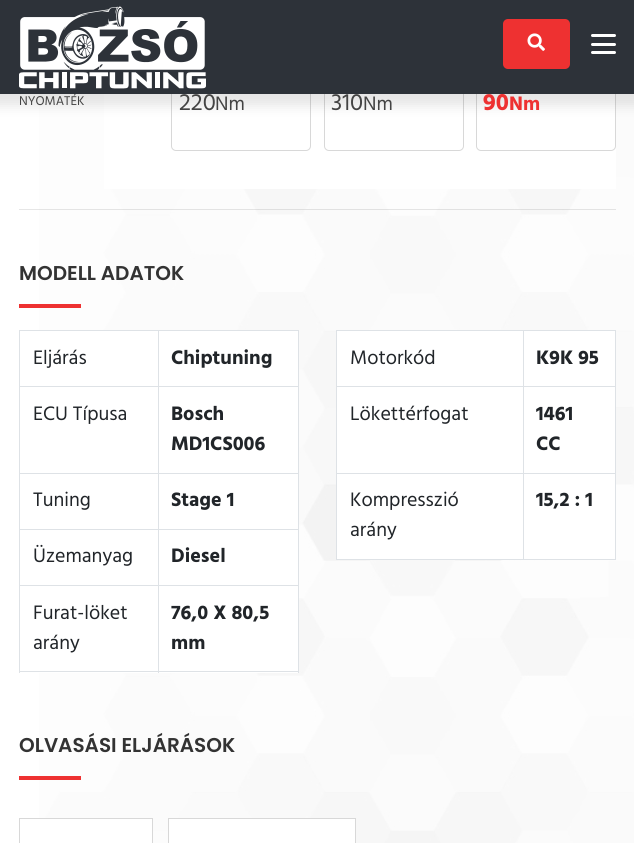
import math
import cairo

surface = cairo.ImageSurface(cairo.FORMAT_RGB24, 634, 843)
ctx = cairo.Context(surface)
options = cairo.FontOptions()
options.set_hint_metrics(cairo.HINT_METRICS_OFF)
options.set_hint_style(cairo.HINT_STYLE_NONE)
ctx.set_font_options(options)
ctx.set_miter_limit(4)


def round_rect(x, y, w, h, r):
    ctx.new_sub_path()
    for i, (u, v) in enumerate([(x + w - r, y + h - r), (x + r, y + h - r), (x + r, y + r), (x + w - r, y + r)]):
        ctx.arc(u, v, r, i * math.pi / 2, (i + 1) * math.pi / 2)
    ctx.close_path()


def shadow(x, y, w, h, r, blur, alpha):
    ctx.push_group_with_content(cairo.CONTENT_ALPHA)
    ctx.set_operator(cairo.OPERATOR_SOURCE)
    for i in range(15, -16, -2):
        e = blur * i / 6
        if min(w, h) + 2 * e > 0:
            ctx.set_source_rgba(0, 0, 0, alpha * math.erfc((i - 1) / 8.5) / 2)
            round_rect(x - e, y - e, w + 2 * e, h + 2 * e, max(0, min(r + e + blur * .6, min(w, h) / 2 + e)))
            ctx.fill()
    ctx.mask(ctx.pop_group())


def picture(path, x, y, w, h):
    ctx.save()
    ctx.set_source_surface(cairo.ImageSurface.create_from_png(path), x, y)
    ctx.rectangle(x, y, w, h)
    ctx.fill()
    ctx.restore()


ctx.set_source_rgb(1, 1, 1)
ctx.paint()
picture("img3.png", 39, 94, 595, 749)
ctx.set_source_rgb(1, 1, 1)
ctx.rectangle(104, 94, 512, 95)
ctx.fill()
round_rect(171.5, 54.5, 139, 96, 4.5)
ctx.set_source_rgb(0.847, 0.847, 0.847)
ctx.set_line_width(1)
ctx.stroke()
round_rect(324.5, 54.5, 139, 96, 4.5)
ctx.stroke()
round_rect(476.5, 54.5, 139, 96, 4.5)
ctx.stroke()
ctx.set_source_rgb(0, 0, 0)
shadow(-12, -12, 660, 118, 0, 6, 0.1)
ctx.select_font_face("Hind")
ctx.set_font_size(13)
ctx.set_source_rgb(0.267, 0.267, 0.267)
ctx.move_to(19, 105)
ctx.show_text("NYOMATÉK")
ctx.set_source_rgb(0.176, 0.196, 0.224)
ctx.rectangle(0, 0, 634, 94)
ctx.fill()
picture("img1.png", 19, 6, 187, 83)
ctx.set_source_rgb(0.933, 0.192, 0.192)
round_rect(503, 19, 67, 50, 5)
ctx.fill()
picture("img2.png", 527, 33, 18, 18)
ctx.set_source_rgb(1, 1, 1)
round_rect(591, 34, 25, 3, 1.5)
ctx.fill()
round_rect(591, 43, 25, 3, 1.5)
ctx.fill()
round_rect(591, 51, 25, 3, 1.5)
ctx.fill()
ctx.set_font_size(24)
ctx.set_source_rgb(0.267, 0.267, 0.267)
ctx.move_to(179, 110)
ctx.show_text("220")
ctx.set_font_size(20)
ctx.move_to(215, 110)
ctx.show_text("Nm")
ctx.set_font_size(24)
ctx.move_to(331, 110)
ctx.show_text("310")
ctx.set_font_size(20)
ctx.move_to(363, 110)
ctx.show_text("Nm")
ctx.select_font_face("Hind", cairo.FONT_SLANT_NORMAL, cairo.FONT_WEIGHT_BOLD)
ctx.set_font_size(24)
ctx.set_source_rgb(0.933, 0.192, 0.192)
ctx.move_to(483, 110)
ctx.show_text("90")
ctx.set_font_size(20)
ctx.move_to(509, 110)
ctx.show_text("Nm")
ctx.set_source_rgba(0, 0, 0, 0.1)
ctx.rectangle(19, 209, 597, 1)
ctx.fill()
ctx.select_font_face("Poppins SemiBold")
ctx.set_source_rgb(0.2, 0.2, 0.2)
ctx.move_to(19, 280)
ctx.show_text("MODELL ADATOK")
ctx.set_source_rgb(0.933, 0.192, 0.192)
ctx.rectangle(19, 304, 62, 4)
ctx.fill()
ctx.set_source_rgb(1, 1, 1)
ctx.rectangle(39, 331, 259, 342)
ctx.fill()
ctx.set_source_rgb(0.871, 0.886, 0.902)
ctx.rectangle(19, 330, 280, 1)
ctx.fill()
ctx.rectangle(298, 330, 1, 343)
ctx.fill()
ctx.rectangle(19, 671, 280, 1)
ctx.fill()
ctx.rectangle(19, 330, 1, 343)
ctx.fill()
ctx.select_font_face("Hind")
ctx.set_source_rgb(0.129, 0.145, 0.161)
ctx.move_to(33, 364)
ctx.show_text("Eljárás")
ctx.set_source_rgb(0.871, 0.886, 0.902)
ctx.rectangle(158, 386, 141, 1)
ctx.fill()
ctx.rectangle(158, 473, 141, 1)
ctx.fill()
ctx.rectangle(158, 529, 141, 1)
ctx.fill()
ctx.rectangle(158, 585, 141, 1)
ctx.fill()
ctx.rectangle(158, 585, 1, 88)
ctx.fill()
ctx.rectangle(19, 585, 140, 1)
ctx.fill()
ctx.rectangle(158, 529, 1, 57)
ctx.fill()
ctx.rectangle(19, 529, 140, 1)
ctx.fill()
ctx.rectangle(158, 473, 1, 57)
ctx.fill()
ctx.rectangle(19, 473, 140, 1)
ctx.fill()
ctx.rectangle(158, 386, 1, 88)
ctx.fill()
ctx.rectangle(19, 386, 140, 1)
ctx.fill()
ctx.rectangle(158, 330, 1, 58)
ctx.fill()
ctx.select_font_face("Hind", cairo.FONT_SLANT_NORMAL, cairo.FONT_WEIGHT_BOLD)
ctx.set_source_rgb(0.129, 0.145, 0.161)
ctx.move_to(171, 364)
ctx.show_text("Chiptuning")
ctx.select_font_face("Hind")
ctx.move_to(33, 420)
ctx.show_text("ECU Típusa")
ctx.select_font_face("Hind", cairo.FONT_SLANT_NORMAL, cairo.FONT_WEIGHT_BOLD)
ctx.move_to(171, 420)
ctx.show_text("Bosch")
ctx.move_to(171, 450)
ctx.show_text("MD1CS006")
ctx.select_font_face("Hind")
ctx.move_to(33, 506)
ctx.show_text("Tuning")
ctx.select_font_face("Hind", cairo.FONT_SLANT_NORMAL, cairo.FONT_WEIGHT_BOLD)
ctx.move_to(171, 506)
ctx.show_text("Stage 1")
ctx.select_font_face("Hind")
ctx.move_to(33, 562)
ctx.show_text("Üzemanyag")
ctx.select_font_face("Hind", cairo.FONT_SLANT_NORMAL, cairo.FONT_WEIGHT_BOLD)
ctx.move_to(171, 562)
ctx.show_text("Diesel")
ctx.select_font_face("Hind")
ctx.move_to(33, 619)
ctx.show_text("Furat-löket")
ctx.move_to(33, 649)
ctx.show_text("arány")
ctx.select_font_face("Hind", cairo.FONT_SLANT_NORMAL, cairo.FONT_WEIGHT_BOLD)
ctx.move_to(171, 619)
ctx.show_text("76,0 X 80,5")
ctx.move_to(171, 649)
ctx.show_text("mm")
ctx.set_source_rgb(1, 1, 1)
ctx.rectangle(337, 331, 278, 228)
ctx.fill()
ctx.set_source_rgb(0.871, 0.886, 0.902)
ctx.rectangle(336, 330, 280, 1)
ctx.fill()
ctx.rectangle(615, 330, 1, 230)
ctx.fill()
ctx.rectangle(336, 559, 280, 1)
ctx.fill()
ctx.rectangle(336, 330, 1, 230)
ctx.fill()
ctx.select_font_face("Hind")
ctx.set_source_rgb(0.129, 0.145, 0.161)
ctx.move_to(350, 364)
ctx.show_text("Motorkód")
ctx.set_source_rgb(0.871, 0.886, 0.902)
ctx.rectangle(523, 386, 93, 1)
ctx.fill()
ctx.rectangle(523, 473, 93, 1)
ctx.fill()
ctx.rectangle(523, 473, 1, 87)
ctx.fill()
ctx.rectangle(336, 473, 188, 1)
ctx.fill()
ctx.rectangle(523, 386, 1, 88)
ctx.fill()
ctx.rectangle(336, 386, 188, 1)
ctx.fill()
ctx.rectangle(523, 330, 1, 58)
ctx.fill()
ctx.select_font_face("Hind", cairo.FONT_SLANT_NORMAL, cairo.FONT_WEIGHT_BOLD)
ctx.set_source_rgb(0.129, 0.145, 0.161)
ctx.move_to(536, 364)
ctx.show_text("K9K 95")
ctx.select_font_face("Hind")
ctx.move_to(350, 420)
ctx.show_text("Lökettérfogat")
ctx.select_font_face("Hind", cairo.FONT_SLANT_NORMAL, cairo.FONT_WEIGHT_BOLD)
ctx.move_to(536, 420)
ctx.show_text("1461")
ctx.move_to(536, 450)
ctx.show_text("CC")
ctx.select_font_face("Hind")
ctx.move_to(350, 506)
ctx.show_text("Kompresszió")
ctx.move_to(350, 536)
ctx.show_text("arány")
ctx.select_font_face("Hind", cairo.FONT_SLANT_NORMAL, cairo.FONT_WEIGHT_BOLD)
ctx.move_to(536, 506)
ctx.show_text("15,2 : 1")
ctx.select_font_face("Poppins SemiBold")
ctx.set_source_rgb(0.2, 0.2, 0.2)
ctx.move_to(19, 752)
ctx.show_text("OLVASÁSI ELJÁRÁSOK")
ctx.set_source_rgb(0.933, 0.192, 0.192)
ctx.rectangle(19, 776, 62, 4)
ctx.fill()
ctx.set_source_rgb(1, 1, 1)
ctx.rectangle(39, 819, 113, 24)
ctx.fill()
ctx.rectangle(19.5, 818.5, 133, 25)
ctx.set_source_rgb(0.847, 0.847, 0.847)
ctx.stroke()
ctx.set_source_rgb(1, 1, 1)
ctx.rectangle(168.5, 818.5, 187, 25)
ctx.fill_preserve()
ctx.set_source_rgb(0.847, 0.847, 0.847)
ctx.stroke()
surface.write_to_png("page.png")
